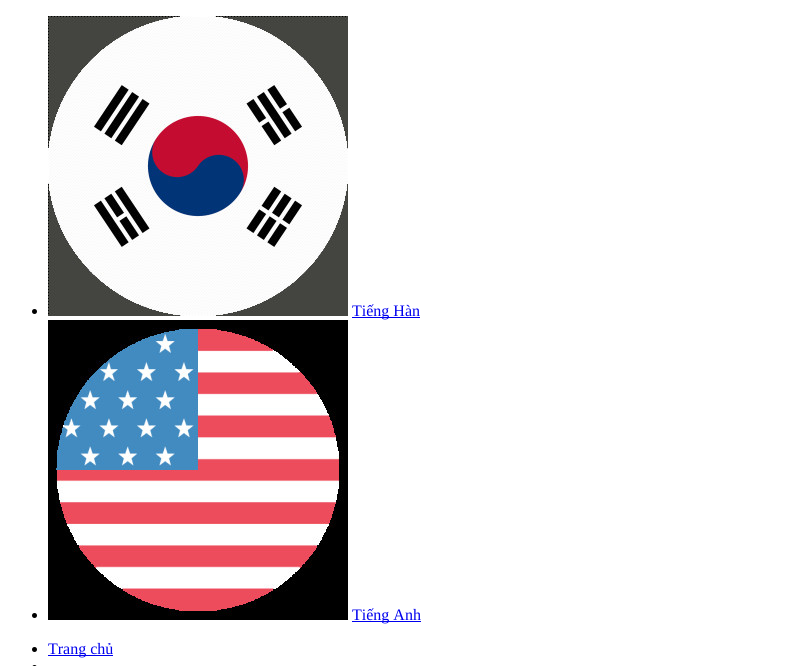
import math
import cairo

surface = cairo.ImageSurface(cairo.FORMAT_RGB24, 788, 666)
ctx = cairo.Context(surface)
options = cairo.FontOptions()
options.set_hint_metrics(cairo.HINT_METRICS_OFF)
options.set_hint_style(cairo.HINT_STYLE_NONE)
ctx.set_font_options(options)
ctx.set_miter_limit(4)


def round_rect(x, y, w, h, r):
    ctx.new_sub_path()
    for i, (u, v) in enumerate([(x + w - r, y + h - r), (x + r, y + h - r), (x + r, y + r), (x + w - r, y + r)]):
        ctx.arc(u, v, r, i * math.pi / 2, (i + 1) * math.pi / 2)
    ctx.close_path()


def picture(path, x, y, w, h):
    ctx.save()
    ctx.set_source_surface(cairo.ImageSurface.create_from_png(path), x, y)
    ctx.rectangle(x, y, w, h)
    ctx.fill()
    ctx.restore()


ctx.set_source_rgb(1, 1, 1)
ctx.paint()
ctx.set_source_rgb(0, 0, 0)
ctx.arc(34.5, 311.5, 2.5, 0, 2 * math.pi)
ctx.fill()
picture("img1.png", 48, 16, 300, 300)
ctx.set_source_rgb(0, 0, 0.933)
ctx.rectangle(352, 317, 68, 1)
ctx.fill()
ctx.select_font_face("Liberation Serif")
ctx.set_font_size(16)
ctx.move_to(352, 316)
ctx.show_text("Tiếng Hàn")
ctx.set_source_rgb(0, 0, 0)
ctx.new_path()
ctx.arc(34.5, 615.5, 2.5, 0, 2 * math.pi)
ctx.fill()
picture("img2.png", 48, 320, 300, 300)
ctx.set_source_rgb(0, 0, 0.933)
ctx.rectangle(352, 621, 69, 1)
ctx.fill()
ctx.move_to(352, 620)
ctx.show_text("Tiếng Anh")
ctx.set_source_rgb(0, 0, 0)
ctx.new_path()
ctx.arc(34.5, 649.5, 2.5, 0, 2 * math.pi)
ctx.fill()
ctx.set_source_rgb(0, 0, 0.933)
ctx.rectangle(48, 655, 65, 1)
ctx.fill()
ctx.move_to(48, 654)
ctx.show_text("Trang chủ")
ctx.set_source_rgb(0, 0, 0)
round_rect(32, 665, 5, 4, 2.5)
ctx.fill()
surface.write_to_png("page.png")
